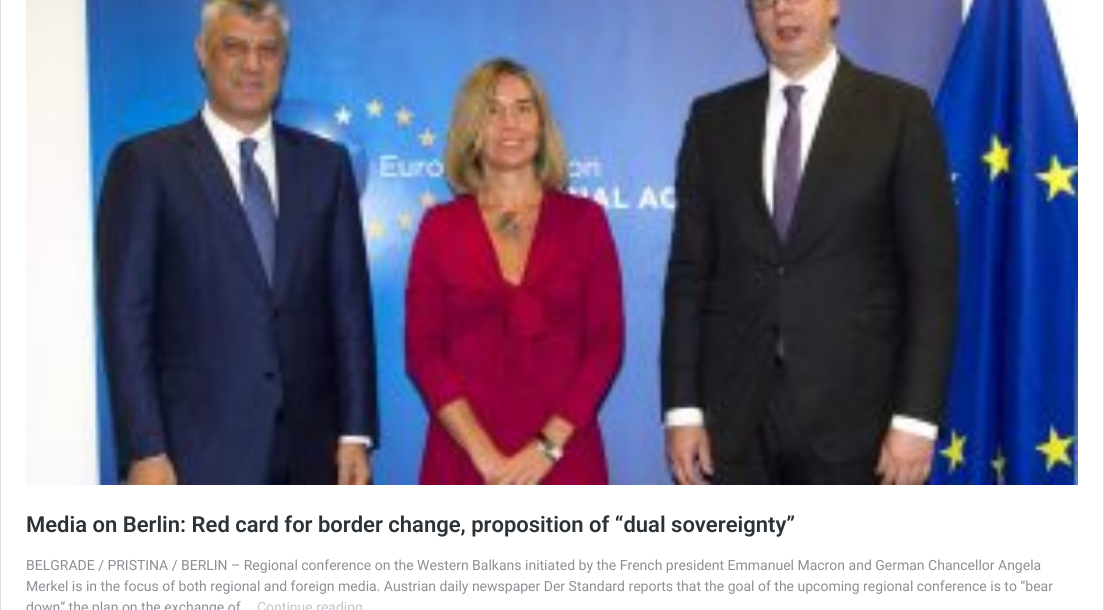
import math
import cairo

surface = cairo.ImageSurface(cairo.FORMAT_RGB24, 1104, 610)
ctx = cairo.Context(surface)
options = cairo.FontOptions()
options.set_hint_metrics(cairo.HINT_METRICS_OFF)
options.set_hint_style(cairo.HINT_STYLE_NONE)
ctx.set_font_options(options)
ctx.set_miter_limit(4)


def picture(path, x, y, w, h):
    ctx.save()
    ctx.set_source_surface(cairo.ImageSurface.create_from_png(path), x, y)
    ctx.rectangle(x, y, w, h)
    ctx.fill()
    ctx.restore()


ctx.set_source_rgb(1, 1, 1)
ctx.paint()
ctx.rectangle(0.5, -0.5, 1103, 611)
ctx.set_source_rgb(0.863, 0.863, 0.871)
ctx.set_line_width(1)
ctx.stroke()
picture("img1.png", 26, 0, 1052, 485)
ctx.select_font_face("Roboto SemiBold")
ctx.set_font_size(22)
ctx.set_source_rgb(0.173, 0.2, 0.22)
ctx.move_to(26, 532)
ctx.show_text("Media on Berlin: Red card for border change, proposition of “dual sovereignty”")
ctx.select_font_face("Roboto")
ctx.set_font_size(14)
ctx.set_source_rgb(0.549, 0.561, 0.58)
ctx.move_to(26, 570)
ctx.show_text("BELGRADE / PRISTINA / BERLIN – Regional conference on the Western Balkans initiated by the French president Emmanuel Macron and German Chancellor Angela")
ctx.move_to(26, 591)
ctx.show_text("Merkel is in the focus of both regional and foreign media. Austrian daily newspaper Der Standard reports that the goal of the upcoming regional conference is to “bear")
ctx.move_to(26, 612)
ctx.show_text("down” the plan on the exchange of")
ctx.set_source_rgb(0.765, 0.769, 0.78)
ctx.move_to(257, 612)
ctx.show_text("Continue reading")
surface.write_to_png("page.png")
